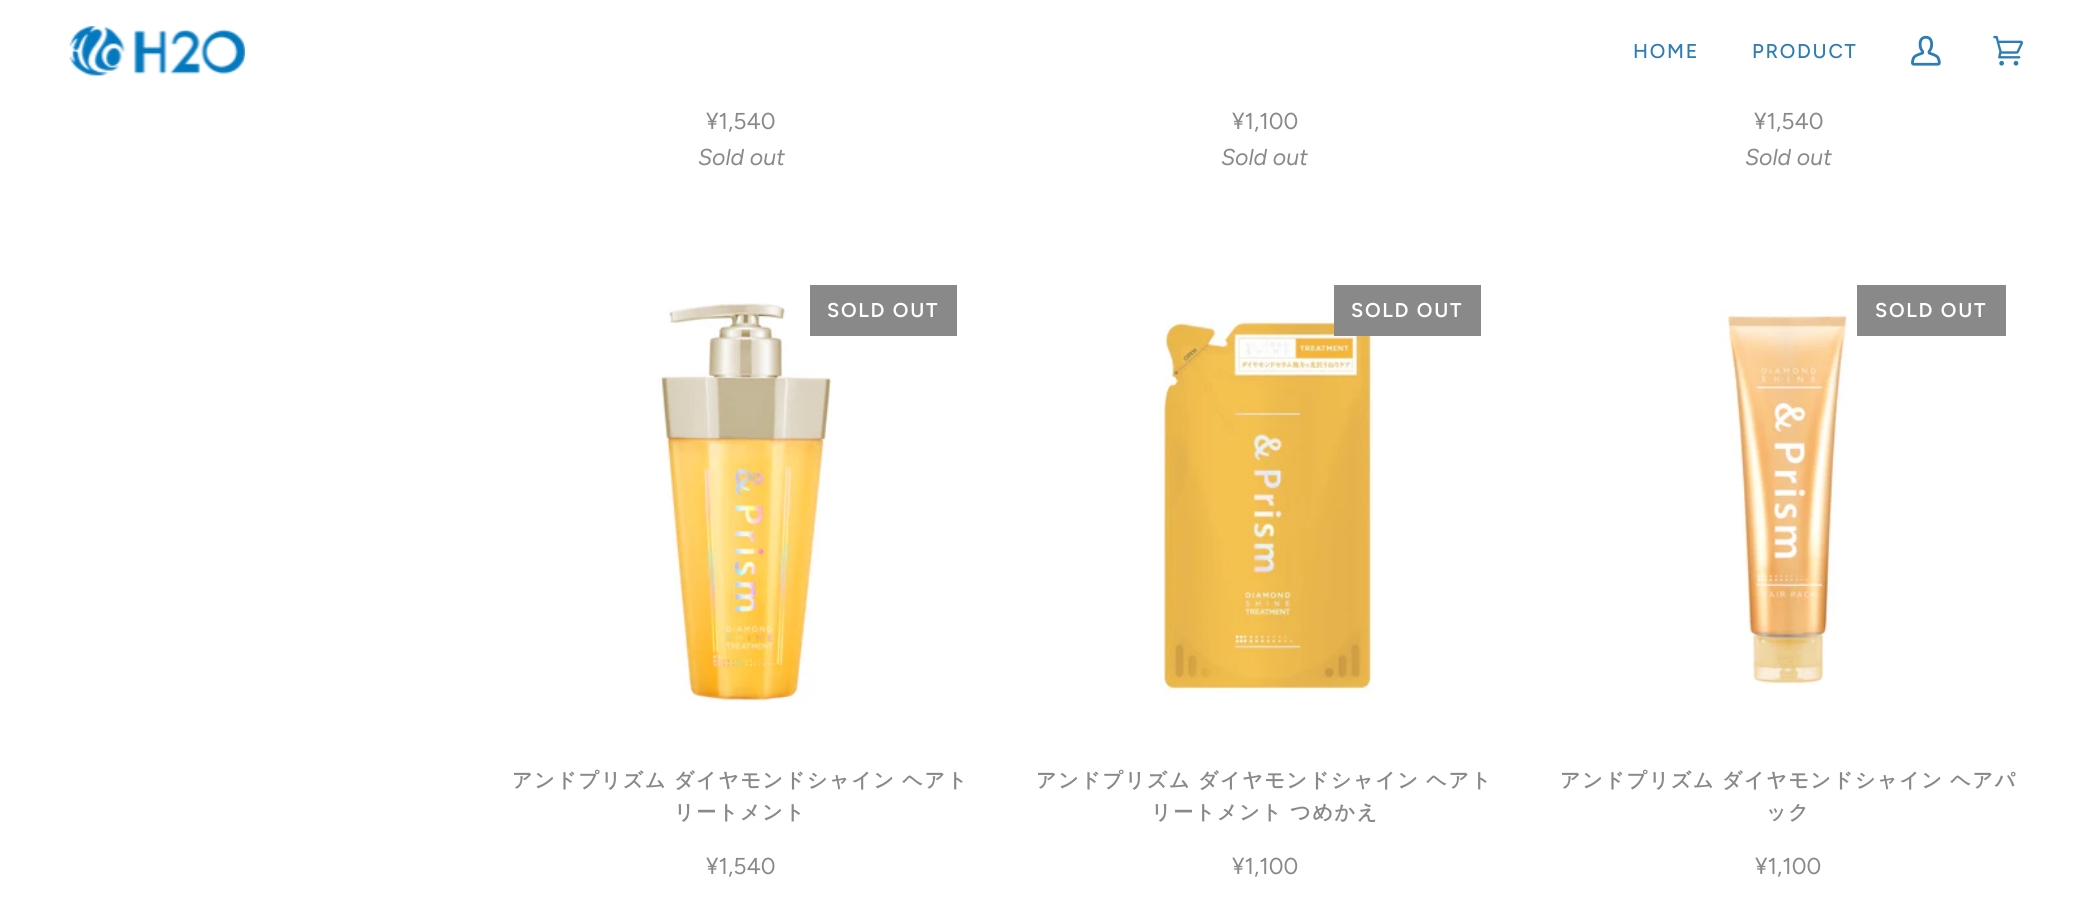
import math
import cairo

surface = cairo.ImageSurface(cairo.FORMAT_RGB24, 2090, 898)
ctx = cairo.Context(surface)
options = cairo.FontOptions()
options.set_hint_metrics(cairo.HINT_METRICS_OFF)
options.set_hint_style(cairo.HINT_STYLE_NONE)
ctx.set_font_options(options)
ctx.set_miter_limit(4)


def spaced_text(x, y, s, letter, word):
    ctx.move_to(x, y)
    for ch in s:
        ctx.show_text(ch)
        ctx.rel_move_to(letter + word * (ch == ' '), 0)


def picture(path, x, y, w, h):
    ctx.save()
    ctx.set_source_surface(cairo.ImageSurface.create_from_png(path), x, y)
    ctx.rectangle(x, y, w, h)
    ctx.fill()
    ctx.restore()


ctx.set_source_rgb(1, 1, 1)
ctx.paint()
picture("img1.png", 69, 26, 176, 50)
ctx.select_font_face("Figtree Medium")
ctx.set_font_size(19.95)
ctx.set_source_rgb(0.173, 0.486, 0.71)
spaced_text(1633, 58, "HOME", 1.75, 0)
spaced_text(1752, 58, "PRODUCT", 1.75, 0)
picture("img2.png", 1911, 35, 30, 31)
picture("img3.png", 1993, 35, 30, 31)
ctx.select_font_face("Figtree")
ctx.set_font_size(23)
ctx.set_source_rgb(0.537, 0.537, 0.537)
ctx.move_to(706, 129)
ctx.show_text("¥1,540")
ctx.select_font_face("Figtree", cairo.FONT_SLANT_ITALIC)
ctx.move_to(698, 165)
ctx.show_text("Sold out")
ctx.select_font_face("Figtree")
ctx.move_to(1232, 129)
ctx.show_text("¥1,100")
ctx.select_font_face("Figtree", cairo.FONT_SLANT_ITALIC)
ctx.move_to(1221, 165)
ctx.show_text("Sold out")
ctx.select_font_face("Figtree")
ctx.move_to(1754, 129)
ctx.show_text("¥1,540")
ctx.select_font_face("Figtree", cairo.FONT_SLANT_ITALIC)
ctx.move_to(1745, 165)
ctx.show_text("Sold out")
picture("img4.png", 658, 303, 174, 399)
ctx.rectangle(810, 285, 147, 51)
ctx.fill()
ctx.select_font_face("Figtree SemiBold")
ctx.set_font_size(19.95)
ctx.set_source_rgb(1, 1, 1)
spaced_text(827, 317, "SOLD OUT", 1.75, 0)
ctx.select_font_face("WenQuanYi Zen Hei", cairo.FONT_SLANT_NORMAL, cairo.FONT_WEIGHT_BOLD)
ctx.set_source_rgb(0.537, 0.537, 0.537)
spaced_text(512, 787, "アンドプリズム ダイヤモンドシャイン ヘアト", 1.75, -1)
spaced_text(674, 819, "リートメント", 1.75, 0)
ctx.select_font_face("Figtree")
ctx.set_font_size(23)
ctx.move_to(706, 874)
ctx.show_text("¥1,540")
picture("img5.png", 1160, 319, 214, 375)
ctx.rectangle(1334, 285, 147, 51)
ctx.fill()
ctx.select_font_face("Figtree SemiBold")
ctx.set_font_size(19.95)
ctx.set_source_rgb(1, 1, 1)
spaced_text(1351, 317, "SOLD OUT", 1.75, 0)
ctx.select_font_face("WenQuanYi Zen Hei", cairo.FONT_SLANT_NORMAL, cairo.FONT_WEIGHT_BOLD)
ctx.set_source_rgb(0.537, 0.537, 0.537)
spaced_text(1036, 787, "アンドプリズム ダイヤモンドシャイン ヘアト", 1.75, -1)
spaced_text(1151, 819, "リートメント つめかえ", 1.75, -1)
ctx.select_font_face("Figtree")
ctx.set_font_size(23)
ctx.move_to(1232, 874)
ctx.show_text("¥1,100")
picture("img6.png", 1721, 309, 127, 376)
ctx.rectangle(1857, 285, 149, 51)
ctx.fill()
ctx.select_font_face("Figtree SemiBold")
ctx.set_font_size(19.95)
ctx.set_source_rgb(1, 1, 1)
spaced_text(1875, 317, "SOLD OUT", 1.75, 0)
ctx.select_font_face("WenQuanYi Zen Hei", cairo.FONT_SLANT_NORMAL, cairo.FONT_WEIGHT_BOLD)
ctx.set_source_rgb(0.537, 0.537, 0.537)
spaced_text(1560, 787, "アンドプリズム ダイヤモンドシャイン ヘアパ", 1.75, -1)
spaced_text(1766, 819, "ック", 1.75, 0)
ctx.select_font_face("Figtree")
ctx.set_font_size(23)
ctx.move_to(1755, 874)
ctx.show_text("¥1,100")
surface.write_to_png("page.png")
